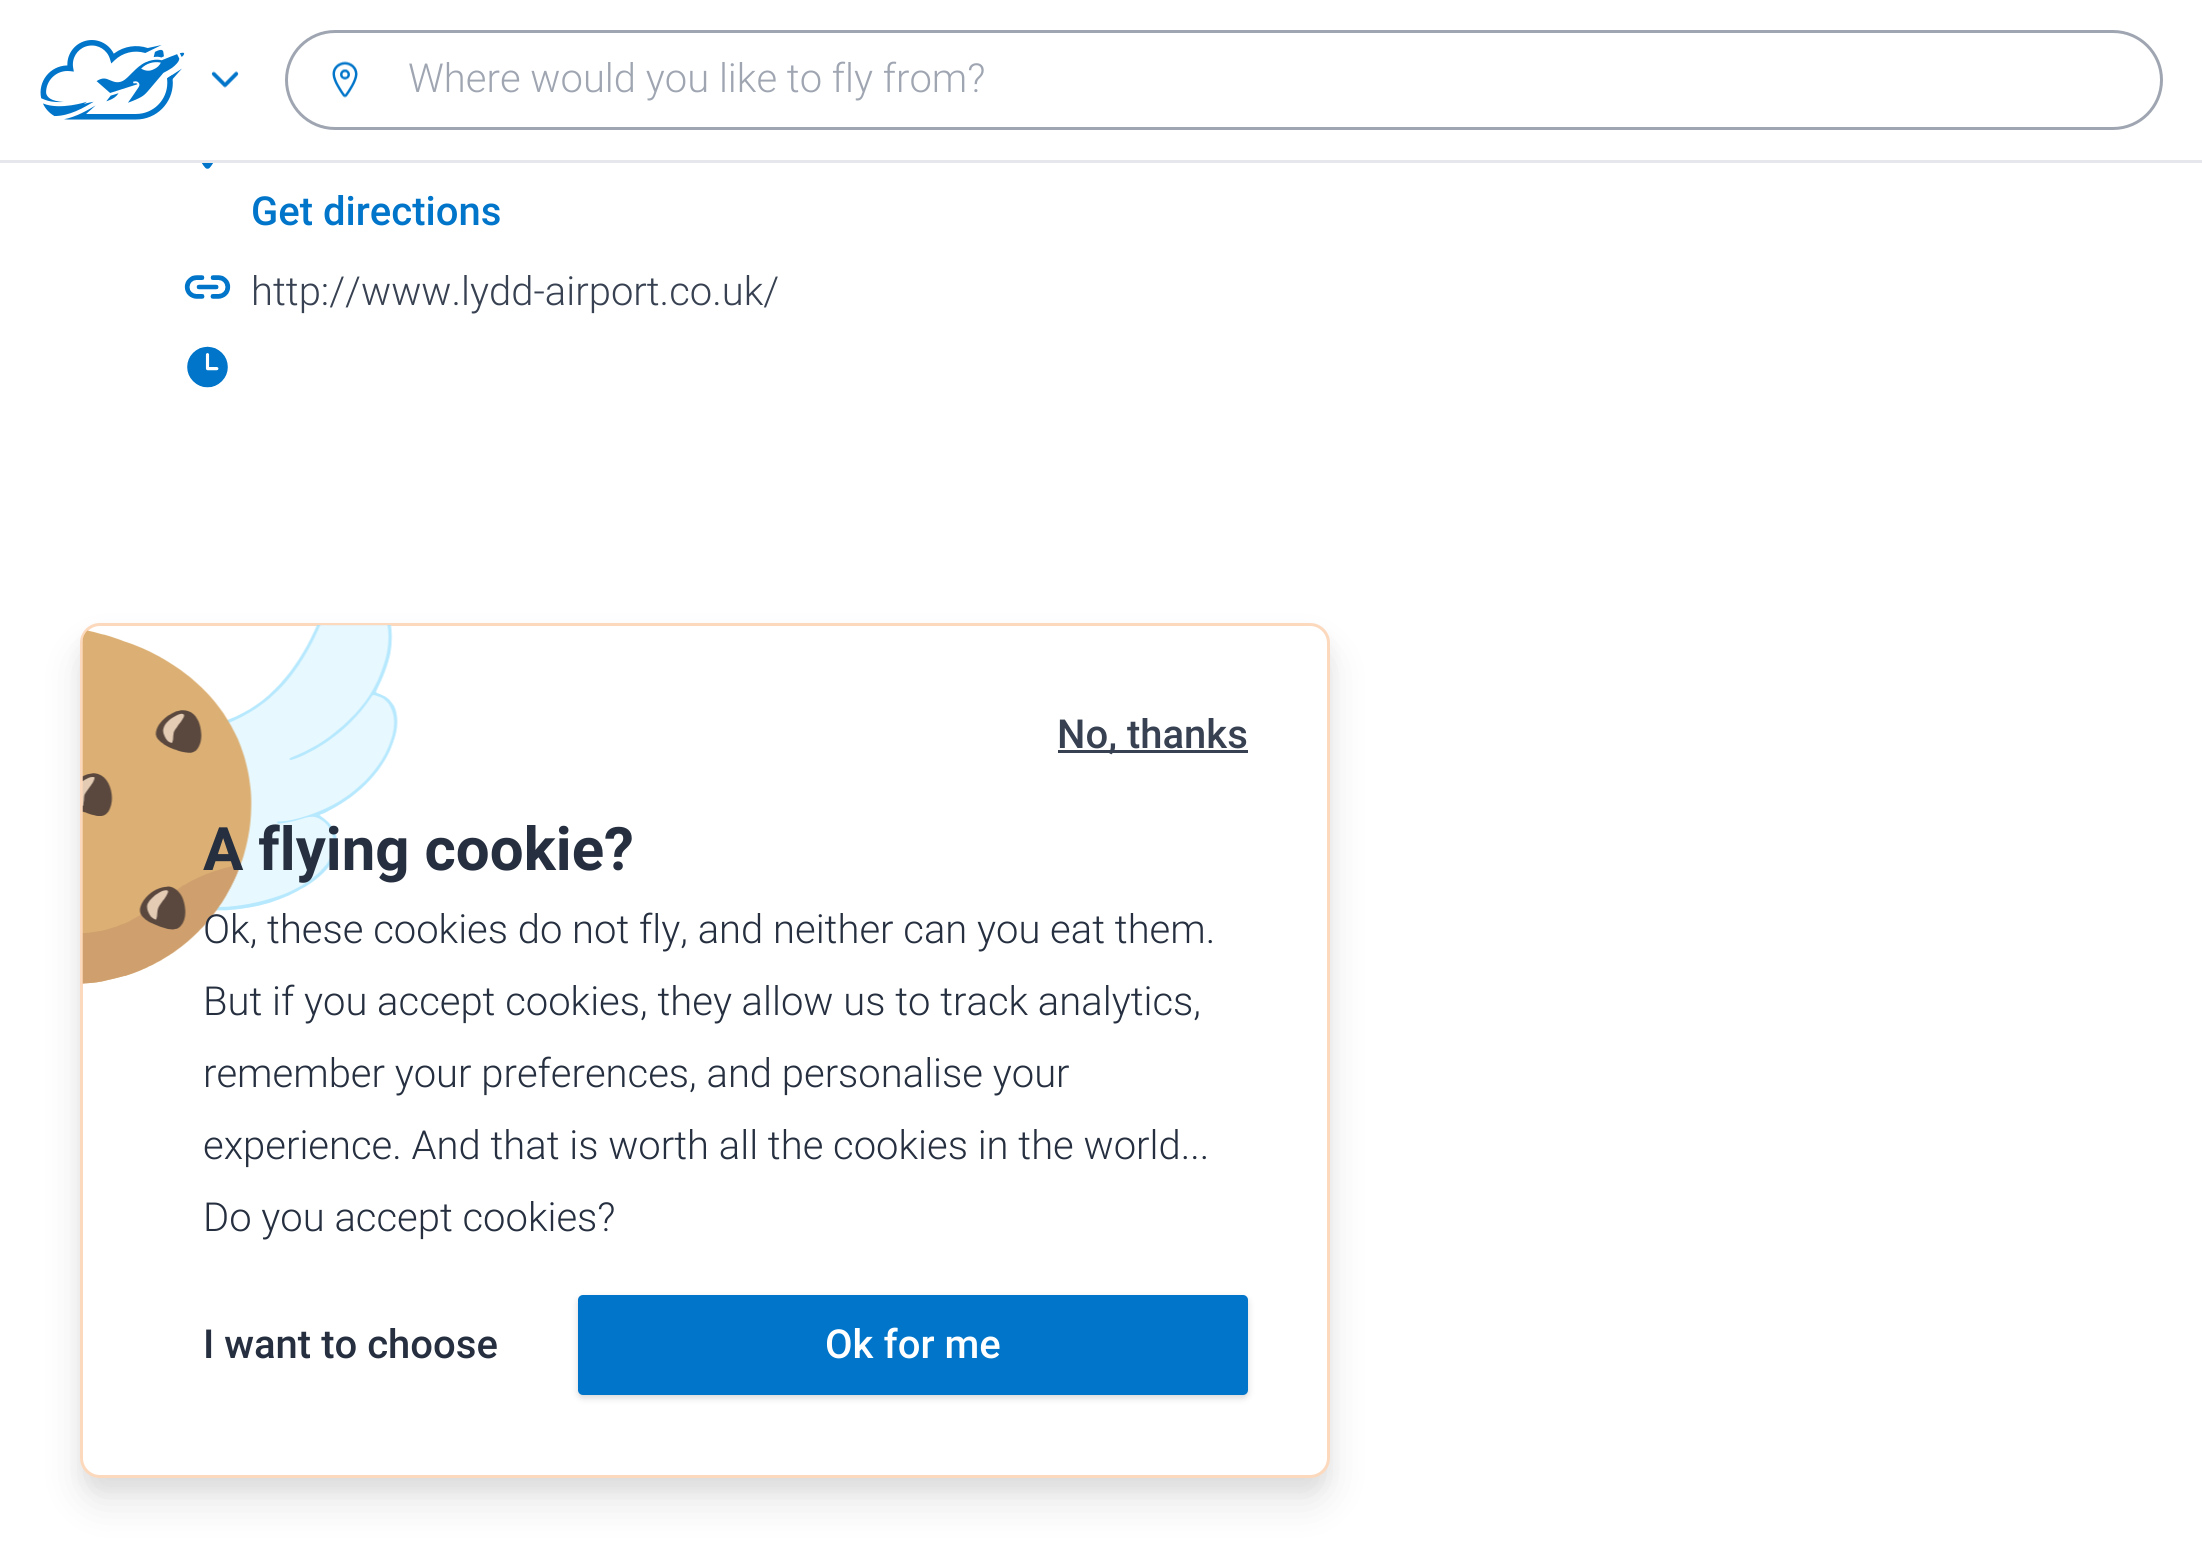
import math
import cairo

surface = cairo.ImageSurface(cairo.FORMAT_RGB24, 2202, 1556)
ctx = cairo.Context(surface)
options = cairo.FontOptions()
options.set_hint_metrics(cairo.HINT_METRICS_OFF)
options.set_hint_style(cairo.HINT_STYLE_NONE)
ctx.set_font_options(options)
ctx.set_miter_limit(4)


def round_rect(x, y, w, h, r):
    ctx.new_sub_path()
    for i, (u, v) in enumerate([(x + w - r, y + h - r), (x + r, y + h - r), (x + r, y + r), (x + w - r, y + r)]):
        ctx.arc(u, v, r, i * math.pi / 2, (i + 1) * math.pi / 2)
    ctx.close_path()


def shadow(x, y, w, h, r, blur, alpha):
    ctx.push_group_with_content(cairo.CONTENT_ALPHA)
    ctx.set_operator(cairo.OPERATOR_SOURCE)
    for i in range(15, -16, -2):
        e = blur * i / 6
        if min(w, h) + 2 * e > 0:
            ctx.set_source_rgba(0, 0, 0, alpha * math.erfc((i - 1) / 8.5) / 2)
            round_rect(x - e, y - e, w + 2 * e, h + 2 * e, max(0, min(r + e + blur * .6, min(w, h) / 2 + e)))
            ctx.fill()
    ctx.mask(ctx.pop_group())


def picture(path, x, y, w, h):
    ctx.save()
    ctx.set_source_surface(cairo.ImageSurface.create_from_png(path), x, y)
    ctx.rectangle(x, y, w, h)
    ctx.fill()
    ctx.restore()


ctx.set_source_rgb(1, 1, 1)
ctx.paint()
ctx.set_source_rgb(0.898, 0.906, 0.922)
ctx.rectangle(0, 160, 2202, 3)
ctx.fill()
picture("img1.png", 40, 40, 145, 80)
picture("img2.png", 211, 71, 28, 17)
round_rect(286.5, 31.5, 1875, 97, 48.5)
ctx.set_source_rgb(0.624, 0.651, 0.698)
ctx.set_line_width(3)
ctx.stroke()
picture("img3.png", 332, 61, 26, 37)
ctx.select_font_face("Roboto Light")
ctx.set_font_size(40)
ctx.move_to(408, 92)
ctx.show_text("Where would you like to fly from?")
picture("img4.png", 202, 163, 11, 6)
ctx.select_font_face("Roboto Medium")
ctx.set_source_rgb(0, 0.459, 0.788)
ctx.move_to(251, 225)
ctx.show_text("Get directions")
picture("img5.png", 184, 275, 47, 24)
ctx.select_font_face("Roboto Light")
ctx.set_source_rgb(0.216, 0.255, 0.318)
ctx.move_to(251, 305)
ctx.show_text("http://www.lydd-airport.co.uk/")
picture("img6.png", 187, 346, 41, 42)
ctx.set_source_rgb(0, 0, 0)
shadow(80, 648, 1250, 855, 20, 19, 0.1)
shadow(80, 633, 1250, 855, 20, 7.5, 0.05)
ctx.set_source_rgb(1, 1, 1)
round_rect(81.5, 624.5, 1247, 852, 18.5)
ctx.fill_preserve()
ctx.set_source_rgb(0.988, 0.851, 0.741)
ctx.stroke()
picture("img7.png", 82, 625, 316, 359)
ctx.set_source_rgb(0.216, 0.255, 0.318)
ctx.rectangle(1058, 750, 190, 3)
ctx.fill()
ctx.select_font_face("Roboto Medium")
ctx.move_to(1057, 748)
ctx.show_text("No, thanks")
ctx.select_font_face("Roboto", cairo.FONT_SLANT_NORMAL, cairo.FONT_WEIGHT_BOLD)
ctx.set_font_size(60)
ctx.set_source_rgb(0.145, 0.184, 0.247)
ctx.move_to(203, 870)
ctx.show_text("A flying cookie?")
ctx.select_font_face("Roboto Light")
ctx.set_font_size(40)
ctx.move_to(203, 943)
ctx.show_text("Ok, these cookies do not fly, and neither can you eat them.")
ctx.move_to(203, 1015)
ctx.show_text("But if you accept cookies, they allow us to track analytics,")
ctx.move_to(203, 1087)
ctx.show_text("remember your preferences, and personalise your")
ctx.move_to(203, 1159)
ctx.show_text("experience. And that is worth all the cookies in the world...")
ctx.move_to(203, 1231)
ctx.show_text("Do you accept cookies?")
ctx.select_font_face("Roboto Medium")
ctx.move_to(203, 1358)
ctx.show_text("I want to choose")
ctx.set_source_rgb(0, 0, 0)
shadow(578, 1298, 670, 100, 5, 2.5, 0.06)
shadow(578, 1298, 670, 100, 5, 4, 0.1)
ctx.set_source_rgb(0, 0.459, 0.788)
round_rect(578, 1295, 670, 100, 5)
ctx.fill()
ctx.set_source_rgb(1, 1, 1)
ctx.move_to(825, 1358)
ctx.show_text("Ok for me")
surface.write_to_png("page.png")
